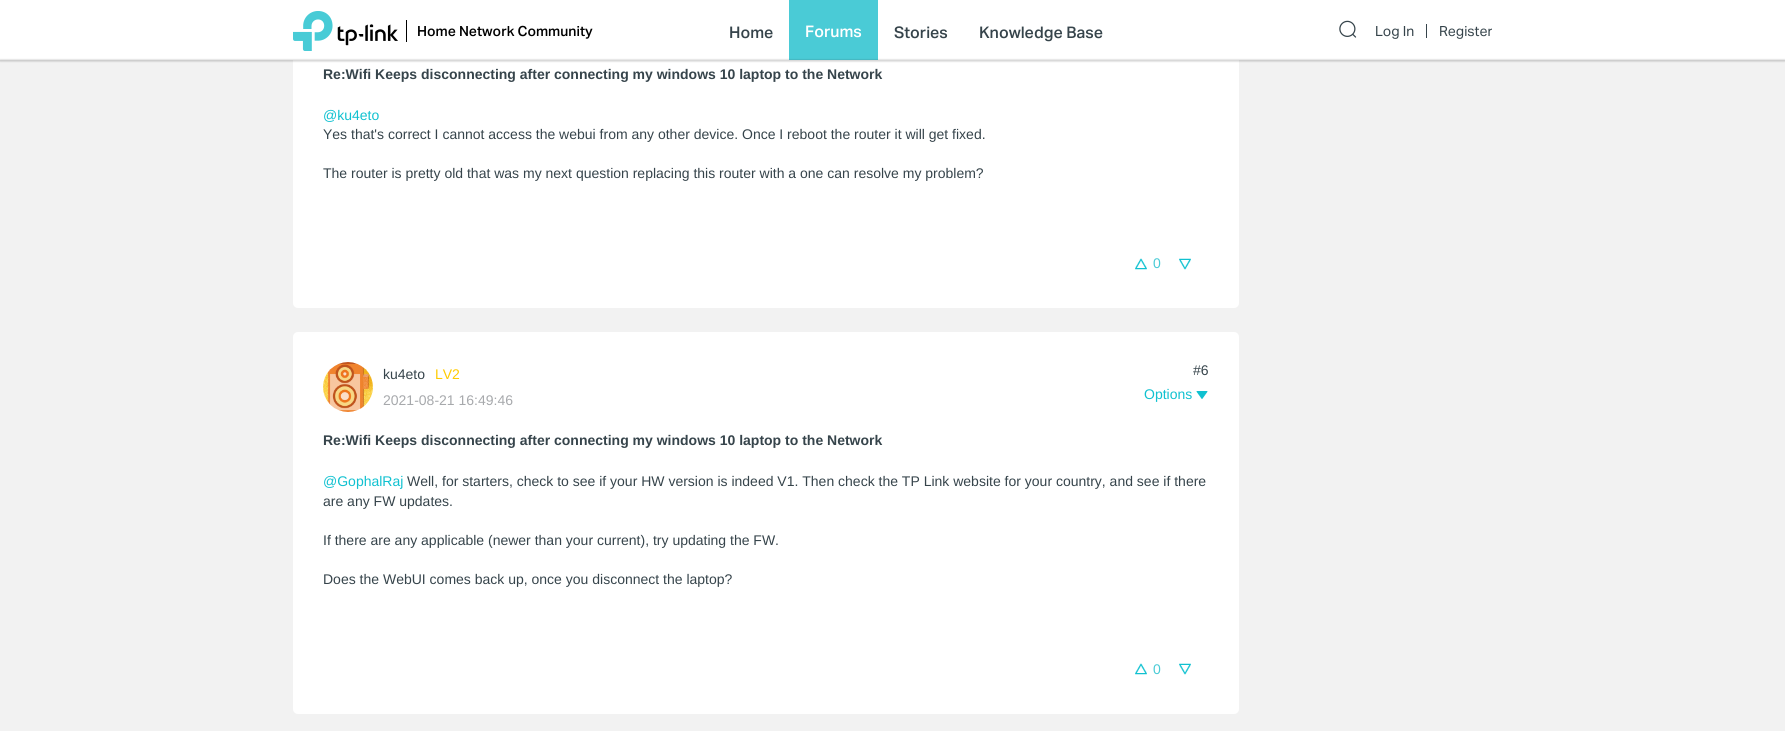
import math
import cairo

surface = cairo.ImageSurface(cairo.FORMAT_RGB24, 1785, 731)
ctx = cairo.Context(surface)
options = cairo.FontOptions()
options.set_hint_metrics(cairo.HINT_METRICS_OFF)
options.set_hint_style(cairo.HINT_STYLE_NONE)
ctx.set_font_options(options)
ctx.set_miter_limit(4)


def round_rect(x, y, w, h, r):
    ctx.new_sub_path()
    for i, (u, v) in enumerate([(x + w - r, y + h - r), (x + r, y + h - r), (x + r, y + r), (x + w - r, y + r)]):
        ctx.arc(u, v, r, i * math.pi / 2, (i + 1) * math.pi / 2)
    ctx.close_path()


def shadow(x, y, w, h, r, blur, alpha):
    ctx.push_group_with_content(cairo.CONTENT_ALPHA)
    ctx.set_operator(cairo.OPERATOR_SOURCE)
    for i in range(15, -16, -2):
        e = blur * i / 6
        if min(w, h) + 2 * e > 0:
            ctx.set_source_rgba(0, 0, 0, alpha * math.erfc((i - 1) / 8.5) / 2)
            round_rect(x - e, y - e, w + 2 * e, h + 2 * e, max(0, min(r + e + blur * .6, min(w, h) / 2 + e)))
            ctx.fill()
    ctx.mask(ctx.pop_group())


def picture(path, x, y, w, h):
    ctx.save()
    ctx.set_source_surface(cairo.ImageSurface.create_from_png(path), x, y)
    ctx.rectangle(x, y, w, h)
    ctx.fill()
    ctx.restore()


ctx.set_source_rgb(0.949, 0.949, 0.949)
ctx.paint()
ctx.set_source_rgb(1, 1, 1)
round_rect(293, -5, 946, 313, 5)
ctx.fill()
ctx.rectangle(0, 0, 1785, 60)
ctx.fill()
picture("img1.png", 293, 11, 105, 40)
ctx.set_source_rgb(0, 0, 0)
ctx.rectangle(406, 20, 1, 22)
ctx.fill()
ctx.select_font_face("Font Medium")
ctx.set_font_size(14)
ctx.move_to(417, 36)
ctx.show_text("Home Network Community")
ctx.set_font_size(16)
ctx.set_source_rgb(0.212, 0.267, 0.294)
ctx.move_to(729, 38)
ctx.show_text("Home")
ctx.set_source_rgb(0.29, 0.796, 0.839)
ctx.rectangle(789, 0, 89, 60)
ctx.fill()
ctx.set_source_rgb(1, 1, 1)
ctx.move_to(805, 37)
ctx.show_text("Forums")
ctx.set_source_rgb(0.212, 0.267, 0.294)
ctx.move_to(894, 38)
ctx.show_text("Stories")
ctx.move_to(979, 38)
ctx.show_text("Knowledge Base")
picture("img2.png", 1339, 20, 18, 18)
ctx.rectangle(1426, 24, 1, 14)
ctx.fill()
ctx.select_font_face("Font")
ctx.set_font_size(14)
ctx.move_to(1375, 36)
ctx.show_text("Log In")
ctx.move_to(1439, 36)
ctx.show_text("Register")
ctx.set_source_rgb(0.129, 0.129, 0.129)
shadow(0, 60, 1785, 1, 0, 1, 0.3)
ctx.select_font_face("Liberation Sans", cairo.FONT_SLANT_NORMAL, cairo.FONT_WEIGHT_BOLD)
ctx.set_source_rgb(0.212, 0.267, 0.294)
ctx.move_to(323, 79)
ctx.show_text("Re:Wifi Keeps disconnecting after connecting my windows 10 laptop to the Network")
ctx.select_font_face("Liberation Sans")
ctx.set_source_rgb(0.063, 0.757, 0.816)
ctx.move_to(323, 120)
ctx.show_text("@ku4eto")
ctx.set_source_rgb(0.212, 0.267, 0.294)
ctx.move_to(323, 139)
ctx.show_text("Yes that's correct I cannot access the webui from any other device. Once I reboot the router it will get fixed.")
ctx.move_to(323, 178)
ctx.show_text("The router is pretty old that was my next question replacing this router with a one can resolve my problem?")
picture("img3.png", 1135, 258, 12, 12)
ctx.set_source_rgb(0.29, 0.796, 0.839)
ctx.move_to(1153, 268)
ctx.show_text("0")
picture("img4.png", 1179, 258, 12, 12)
ctx.set_source_rgb(1, 1, 1)
round_rect(293, 332, 946, 382, 5)
ctx.fill()
picture("img5.png", 323, 362, 50, 50)
ctx.set_source_rgb(0.212, 0.267, 0.294)
ctx.move_to(383, 379)
ctx.show_text("ku4eto")
ctx.set_source_rgb(1, 0.796, 0)
ctx.move_to(435, 379)
ctx.show_text("LV2")
ctx.set_source_rgb(0.655, 0.663, 0.675)
ctx.move_to(383, 405)
ctx.show_text("2021-08-21 16:49:46")
ctx.set_source_rgb(0.212, 0.267, 0.294)
ctx.move_to(1193, 375)
ctx.show_text("#6")
ctx.set_source_rgb(0.063, 0.757, 0.816)
ctx.move_to(1144, 399)
ctx.show_text("Options")
picture("img6.png", 1196, 391, 12, 8)
ctx.select_font_face("Liberation Sans", cairo.FONT_SLANT_NORMAL, cairo.FONT_WEIGHT_BOLD)
ctx.set_source_rgb(0.212, 0.267, 0.294)
ctx.move_to(323, 445)
ctx.show_text("Re:Wifi Keeps disconnecting after connecting my windows 10 laptop to the Network")
ctx.select_font_face("Liberation Sans")
ctx.set_source_rgb(0.063, 0.757, 0.816)
ctx.move_to(323, 486)
ctx.show_text("@GophalRaj")
ctx.set_source_rgb(0.212, 0.267, 0.294)
ctx.move_to(407, 486)
ctx.show_text("Well, for starters, check to see if your HW version is indeed V1. Then check the TP Link website for your country, and see if there")
ctx.move_to(323, 506)
ctx.show_text("are any FW updates.")
ctx.move_to(323, 545)
ctx.show_text("If there are any applicable (newer than your current), try updating the FW.")
ctx.move_to(323, 584)
ctx.show_text("Does the WebUI comes back up, once you disconnect the laptop?")
picture("img3.png", 1135, 663, 12, 12)
ctx.set_source_rgb(0.29, 0.796, 0.839)
ctx.move_to(1153, 674)
ctx.show_text("0")
picture("img4.png", 1179, 663, 12, 12)
surface.write_to_png("page.png")
